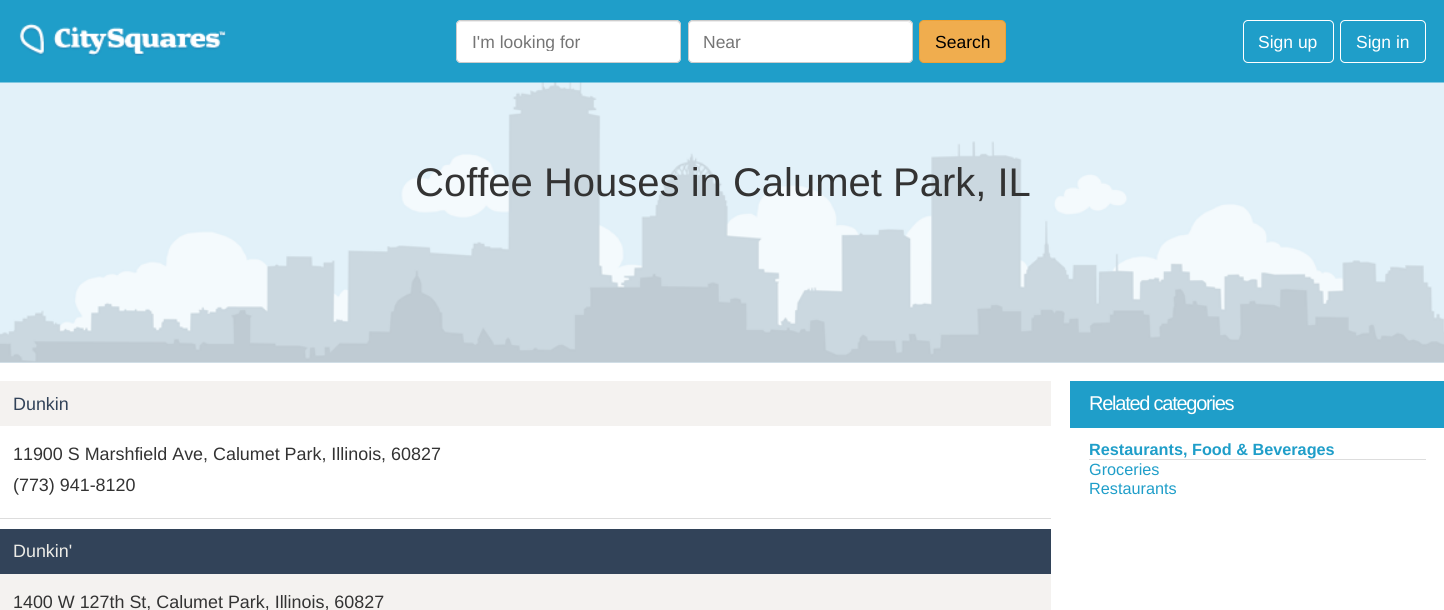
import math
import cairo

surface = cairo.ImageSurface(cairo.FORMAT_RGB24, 1444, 610)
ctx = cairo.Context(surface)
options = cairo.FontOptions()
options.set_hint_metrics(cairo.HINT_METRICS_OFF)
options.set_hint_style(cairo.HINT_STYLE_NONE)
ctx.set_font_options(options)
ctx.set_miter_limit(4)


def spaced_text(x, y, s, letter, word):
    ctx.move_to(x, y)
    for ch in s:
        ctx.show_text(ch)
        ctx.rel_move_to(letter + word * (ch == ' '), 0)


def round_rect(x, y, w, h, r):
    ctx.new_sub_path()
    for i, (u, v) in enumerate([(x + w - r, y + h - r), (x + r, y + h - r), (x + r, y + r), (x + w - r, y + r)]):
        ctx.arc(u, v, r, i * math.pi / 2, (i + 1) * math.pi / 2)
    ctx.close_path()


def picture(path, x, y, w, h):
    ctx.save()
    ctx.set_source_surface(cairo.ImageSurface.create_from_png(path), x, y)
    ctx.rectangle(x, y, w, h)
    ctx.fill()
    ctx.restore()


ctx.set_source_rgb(1, 1, 1)
ctx.paint()
ctx.set_source_rgb(0.122, 0.62, 0.788)
ctx.rectangle(0, 0, 1444, 83)
ctx.fill()
picture("img1.png", 19, 23, 207, 33)
ctx.set_source_rgb(1, 1, 1)
round_rect(456, 20, 225, 43, 5)
ctx.fill()
ctx.set_source_rgb(0.925, 0.925, 0.925)
ctx.new_path()
ctx.move_to(461, 22)
ctx.line_to(676, 22)
ctx.curve_to(678, 22, 680, 24, 680, 26)
ctx.curve_to(680, 23, 679, 21, 676, 21)
ctx.line_to(462, 21)
ctx.curve_to(459, 21, 458, 23, 458, 26)
ctx.curve_to(458, 24, 459, 22, 461, 22)
ctx.close_path()
ctx.fill()
round_rect(456.5, 20.5, 224, 42, 4.5)
ctx.set_source_rgb(0.8, 0.8, 0.8)
ctx.set_line_width(1)
ctx.stroke()
ctx.save()
ctx.rectangle(473, 31, 192, 20)
ctx.clip()
ctx.select_font_face("Liberation Sans")
ctx.set_font_size(17.5)
ctx.set_source_rgb(0.459, 0.459, 0.459)
ctx.move_to(472, 48)
ctx.show_text("I'm looking for")
ctx.restore()
ctx.set_source_rgb(1, 1, 1)
round_rect(688, 20, 225, 43, 5)
ctx.fill()
ctx.set_source_rgb(0.925, 0.925, 0.925)
ctx.new_path()
ctx.move_to(692, 22)
ctx.line_to(908, 22)
ctx.line_to(910, 23)
ctx.line_to(911, 26)
ctx.curve_to(911, 23, 910, 21, 907, 21)
ctx.line_to(693, 21)
ctx.curve_to(690, 21, 689, 23, 689, 26)
ctx.curve_to(689, 24, 690, 22, 692, 22)
ctx.close_path()
ctx.fill()
round_rect(688.5, 20.5, 224, 42, 4.5)
ctx.set_source_rgb(0.8, 0.8, 0.8)
ctx.stroke()
ctx.select_font_face("Liberation Sans")
ctx.set_font_size(17.5)
ctx.set_source_rgb(0.459, 0.459, 0.459)
ctx.move_to(703, 48)
ctx.show_text("Near")
ctx.set_source_rgb(0.941, 0.678, 0.306)
round_rect(919.5, 20.5, 86, 42, 4.5)
ctx.fill_preserve()
ctx.set_source_rgb(0.933, 0.635, 0.212)
ctx.stroke()
ctx.set_source_rgb(0, 0, 0)
ctx.move_to(935, 48)
ctx.show_text("Search")
round_rect(1243.5, 20.5, 90, 42, 4.5)
ctx.set_source_rgb(1, 1, 1)
ctx.stroke()
ctx.move_to(1258, 48)
ctx.show_text("Sign up")
round_rect(1340.5, 20.5, 85, 42, 4.5)
ctx.stroke()
ctx.move_to(1356, 48)
ctx.show_text("Sign in")
ctx.set_source_rgb(0.886, 0.945, 0.976)
ctx.rectangle(0, 362, 1444, 1)
ctx.fill()
picture("img2.png", 0, 82, 1444, 281)
ctx.set_font_size(40)
ctx.set_source_rgb(0.2, 0.2, 0.2)
ctx.move_to(415, 196)
ctx.show_text("Coffee Houses in Calumet Park, IL")
ctx.set_source_rgb(0.957, 0.949, 0.941)
ctx.rectangle(0, 381, 1051, 45)
ctx.fill()
ctx.set_font_size(17.9)
ctx.set_source_rgb(0.196, 0.263, 0.349)
ctx.move_to(13, 410)
ctx.show_text("Dunkin")
ctx.set_source_rgb(0.2, 0.2, 0.2)
ctx.move_to(13, 460)
ctx.show_text("11900 S Marshfield Ave, Calumet Park, Illinois, 60827")
ctx.move_to(13, 491)
ctx.show_text("(773) 941-8120")
ctx.set_source_rgb(0.867, 0.867, 0.867)
ctx.rectangle(0, 518, 1051, 1)
ctx.fill()
ctx.set_source_rgb(0.957, 0.949, 0.941)
ctx.rectangle(0, 574, 1051, 36)
ctx.fill()
ctx.set_source_rgb(0.196, 0.263, 0.349)
ctx.rectangle(0, 529, 1051, 45)
ctx.fill()
ctx.set_source_rgb(0.925, 0.918, 0.902)
ctx.move_to(13, 557)
ctx.show_text("Dunkin'")
ctx.set_source_rgb(0.2, 0.2, 0.2)
ctx.move_to(13, 608)
ctx.show_text("1400 W 127th St, Calumet Park, Illinois, 60827")
ctx.set_source_rgb(0.122, 0.62, 0.788)
ctx.rectangle(1070, 381, 374, 47)
ctx.fill()
ctx.set_font_size(20)
ctx.set_source_rgb(1, 1, 1)
spaced_text(1089, 410, "Related categories", -1.25, 0)
ctx.select_font_face("Liberation Sans", cairo.FONT_SLANT_NORMAL, cairo.FONT_WEIGHT_BOLD)
ctx.set_font_size(16.25)
ctx.set_source_rgb(0.122, 0.62, 0.788)
ctx.move_to(1089, 455)
ctx.show_text("Restaurants, Food & Beverages")
ctx.set_source_rgb(0.867, 0.867, 0.867)
ctx.rectangle(1089, 459, 337, 1)
ctx.fill()
ctx.select_font_face("Liberation Sans")
ctx.set_source_rgb(0.122, 0.62, 0.788)
ctx.move_to(1089, 475)
ctx.show_text("Groceries")
ctx.move_to(1089, 494)
ctx.show_text("Restaurants")
surface.write_to_png("page.png")
